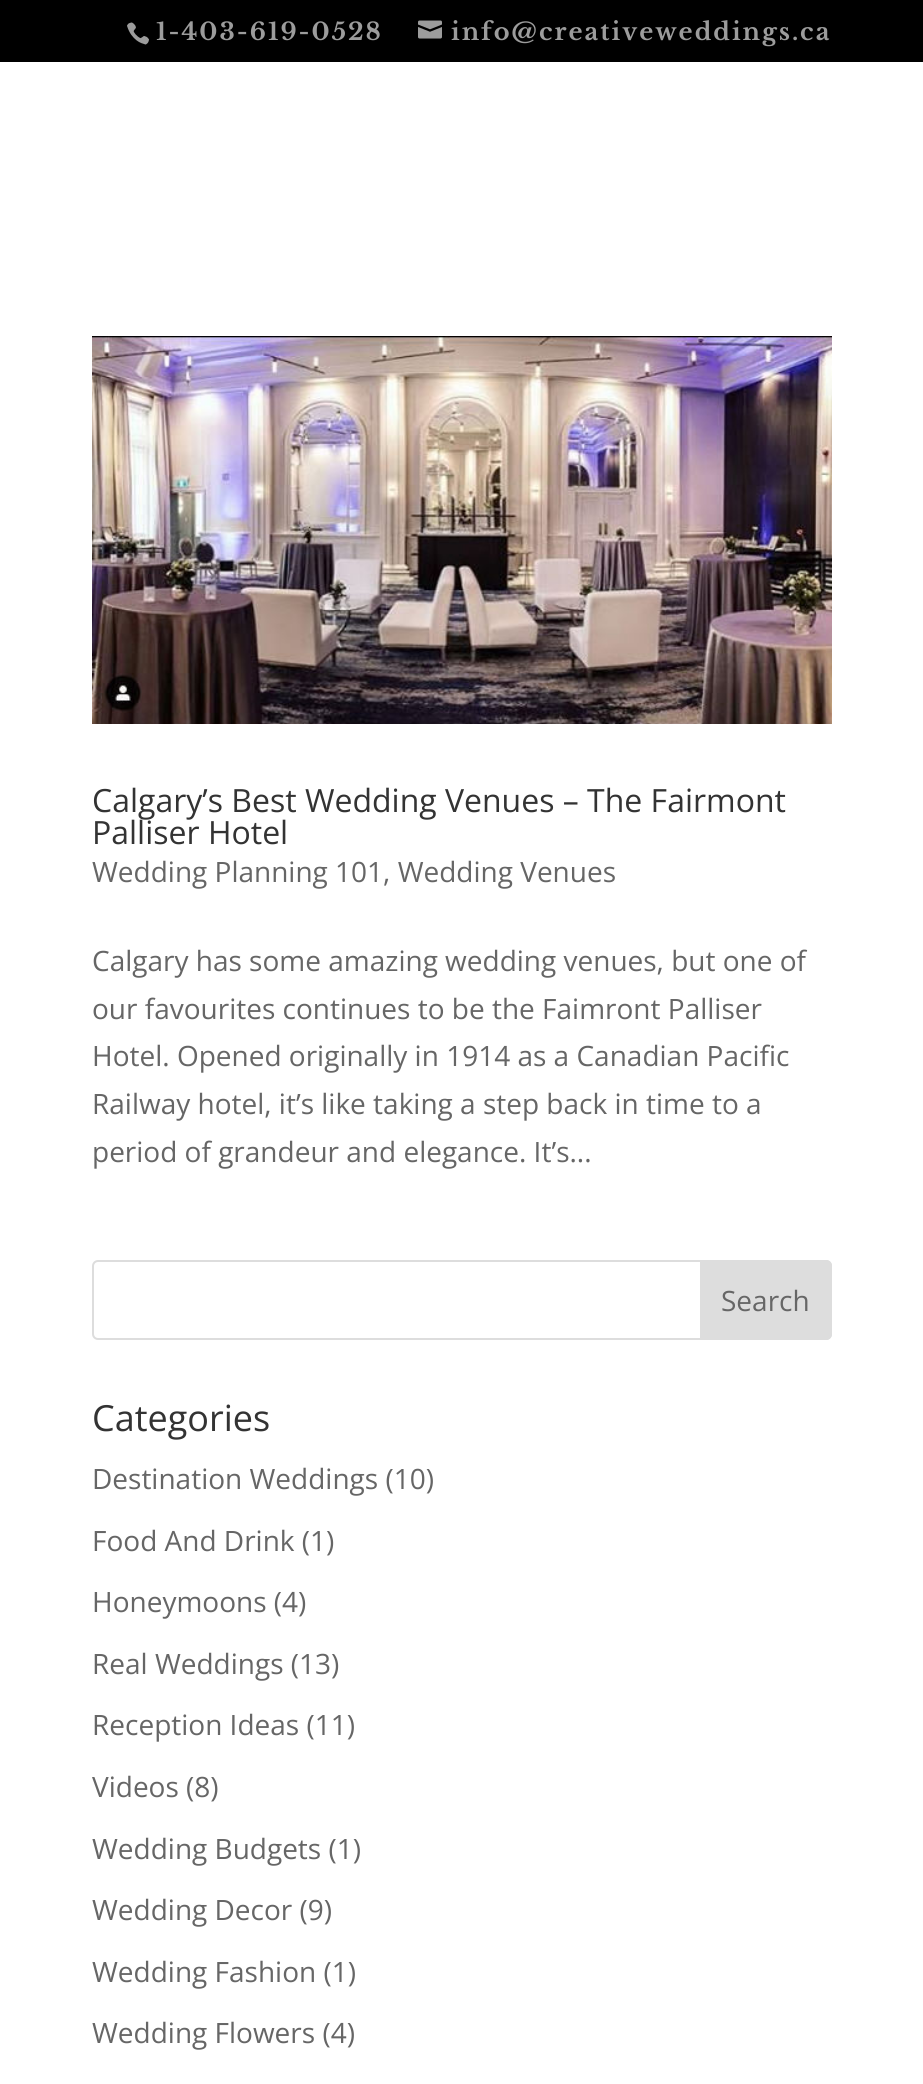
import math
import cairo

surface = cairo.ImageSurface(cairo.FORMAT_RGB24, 923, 2084)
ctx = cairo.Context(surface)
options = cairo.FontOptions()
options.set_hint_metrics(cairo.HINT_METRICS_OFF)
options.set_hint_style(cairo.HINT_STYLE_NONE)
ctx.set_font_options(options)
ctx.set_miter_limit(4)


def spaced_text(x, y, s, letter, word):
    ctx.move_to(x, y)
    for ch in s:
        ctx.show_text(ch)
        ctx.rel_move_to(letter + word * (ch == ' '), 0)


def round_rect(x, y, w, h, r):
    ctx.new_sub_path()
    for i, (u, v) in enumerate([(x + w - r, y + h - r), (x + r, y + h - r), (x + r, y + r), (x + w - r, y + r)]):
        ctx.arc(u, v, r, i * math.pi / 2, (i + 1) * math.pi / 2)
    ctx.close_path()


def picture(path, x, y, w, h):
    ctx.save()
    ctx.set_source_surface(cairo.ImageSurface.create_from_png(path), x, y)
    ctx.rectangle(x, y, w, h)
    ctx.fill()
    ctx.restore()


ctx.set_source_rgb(1, 1, 1)
ctx.paint()
ctx.set_source_rgb(0, 0, 0)
ctx.rectangle(0, 0, 923, 62)
ctx.fill()
picture("img1.png", 127, 22, 22, 23)
ctx.select_font_face("Libre Baskerville", cairo.FONT_SLANT_NORMAL, cairo.FONT_WEIGHT_BOLD)
ctx.set_font_size(24)
ctx.set_source_rgb(0.612, 0.612, 0.612)
spaced_text(156, 40, "1-403-619-0528", 2, 0)
picture("img2.png", 418, 20, 24, 19)
spaced_text(451, 40, "info@creativeweddings.ca", 2, 0)
picture("img3.png", 92, 336, 740, 388)
ctx.select_font_face("Open Sans")
ctx.set_font_size(32)
ctx.set_source_rgb(0.2, 0.2, 0.2)
ctx.move_to(92, 812)
ctx.show_text("Calgary’s Best Wedding Venues – The Fairmont")
ctx.move_to(92, 844)
ctx.show_text("Palliser Hotel")
ctx.set_font_size(28)
ctx.set_source_rgb(0.4, 0.4, 0.4)
ctx.move_to(92, 882)
ctx.show_text("Wedding Planning 101, Wedding Venues")
ctx.move_to(92, 971)
ctx.show_text("Calgary has some amazing wedding venues, but one of")
ctx.move_to(92, 1019)
ctx.show_text("our favourites continues to be the Faimront Palliser")
ctx.move_to(92, 1066)
ctx.show_text("Hotel. Opened originally in 1914 as a Canadian Pacific")
ctx.move_to(92, 1114)
ctx.show_text("Railway hotel, it’s like taking a step back in time to a")
ctx.move_to(92, 1162)
ctx.show_text("period of grandeur and elegance. It’s...")
round_rect(93, 1261, 738, 78, 5)
ctx.set_source_rgb(0.867, 0.867, 0.867)
ctx.stroke()
ctx.new_path()
ctx.move_to(701, 1261)
ctx.line_to(826, 1261)
ctx.curve_to(829, 1261, 831, 1263, 831, 1266)
ctx.line_to(831, 1334)
ctx.curve_to(831, 1337, 829, 1339, 826, 1339)
ctx.line_to(701, 1339)
ctx.close_path()
ctx.fill_preserve()
ctx.stroke()
ctx.set_source_rgb(0.4, 0.4, 0.4)
ctx.move_to(721, 1311)
ctx.show_text("Search")
ctx.set_font_size(36)
ctx.set_source_rgb(0.2, 0.2, 0.2)
ctx.move_to(92, 1431)
ctx.show_text("Categories")
ctx.set_font_size(28)
ctx.set_source_rgb(0.4, 0.4, 0.4)
ctx.move_to(92, 1489)
ctx.show_text("Destination Weddings (10)")
ctx.move_to(92, 1551)
ctx.show_text("Food And Drink (1)")
ctx.move_to(92, 1612)
ctx.show_text("Honeymoons (4)")
ctx.move_to(92, 1674)
ctx.show_text("Real Weddings (13)")
ctx.move_to(92, 1735)
ctx.show_text("Reception Ideas (11)")
ctx.move_to(92, 1797)
ctx.show_text("Videos (8)")
ctx.move_to(92, 1859)
ctx.show_text("Wedding Budgets (1)")
ctx.move_to(92, 1920)
ctx.show_text("Wedding Decor (9)")
ctx.move_to(92, 1982)
ctx.show_text("Wedding Fashion (1)")
ctx.move_to(92, 2043)
ctx.show_text("Wedding Flowers (4)")
surface.write_to_png("page.png")
